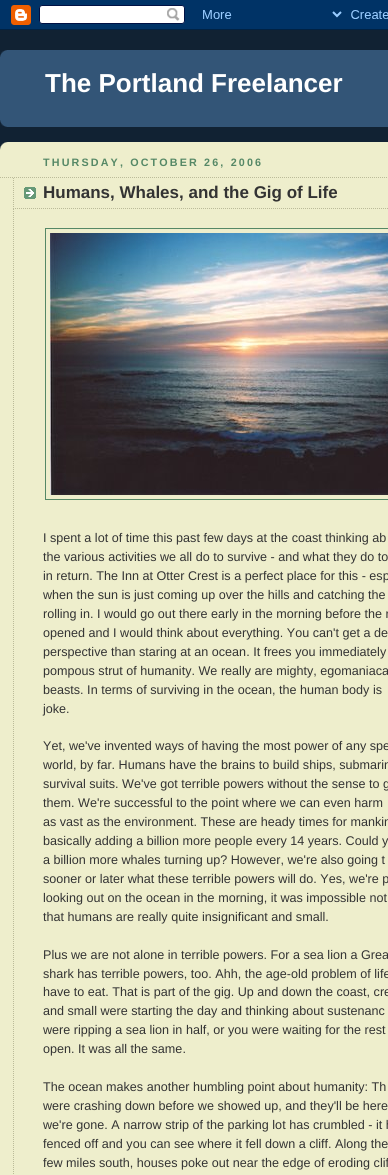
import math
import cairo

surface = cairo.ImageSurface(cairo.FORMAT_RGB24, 388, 1175)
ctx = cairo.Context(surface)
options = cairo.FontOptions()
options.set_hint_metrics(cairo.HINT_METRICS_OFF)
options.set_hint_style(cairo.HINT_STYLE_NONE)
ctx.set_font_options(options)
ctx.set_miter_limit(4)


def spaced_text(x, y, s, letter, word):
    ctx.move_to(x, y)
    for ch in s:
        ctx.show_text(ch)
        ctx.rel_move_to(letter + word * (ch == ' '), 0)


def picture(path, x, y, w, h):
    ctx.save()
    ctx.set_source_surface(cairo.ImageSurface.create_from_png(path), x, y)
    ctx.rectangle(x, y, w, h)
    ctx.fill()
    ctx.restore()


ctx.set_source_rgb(0.067, 0.133, 0.2)
ctx.paint()
picture("img1.png", 0, 0, 388, 30)
ctx.set_source_rgb(0.2, 0.333, 0.467)
ctx.rectangle(0, 50, 388, 77)
ctx.fill()
picture("img2.png", 0, 120, 7, 7)
picture("img3.png", 0, 50, 7, 7)
ctx.select_font_face("Liberation Sans", cairo.FONT_SLANT_NORMAL, cairo.FONT_WEIGHT_BOLD)
ctx.set_font_size(26)
ctx.set_source_rgb(1, 1, 1)
ctx.move_to(45, 92)
ctx.show_text("The Portland Freelancer")
ctx.set_source_rgb(0.933, 0.933, 0.8)
ctx.rectangle(0, 142, 388, 1033)
ctx.fill()
picture("img4.png", 0, 142, 8, 8)
ctx.set_font_size(10.75)
ctx.set_source_rgb(0.333, 0.533, 0.4)
spaced_text(43, 166, "THURSDAY, OCTOBER 26, 2006", 2.15, 0)
ctx.new_path()
ctx.move_to(0, 177.5)
ctx.line_to(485, 177.5)
ctx.set_source_rgb(0.733, 0.733, 0.6)
ctx.set_line_width(1)
ctx.set_dash([1, 1])
ctx.stroke()
picture("img5.png", 24, 187, 12, 12)
ctx.new_path()
ctx.move_to(13, 208.5)
ctx.line_to(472, 208.5)
ctx.stroke()
ctx.new_path()
ctx.move_to(13.5, 178)
ctx.line_to(13.5, 209)
ctx.stroke()
ctx.set_font_size(17)
ctx.set_source_rgb(0.2, 0.2, 0.2)
ctx.move_to(43, 198)
ctx.show_text("Humans, Whales, and the Gig of Life")
ctx.new_path()
ctx.move_to(13.5, 209)
ctx.line_to(13.5, 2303)
ctx.set_source_rgb(0.733, 0.733, 0.6)
ctx.stroke()
ctx.rectangle(45.5, 228.5, 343, 271)
ctx.set_source_rgb(0.333, 0.533, 0.4)
ctx.set_dash([])
ctx.stroke()
picture("img6.png", 50, 233, 338, 262)
ctx.select_font_face("Liberation Sans")
ctx.set_font_size(12.6)
ctx.set_source_rgb(0.2, 0.2, 0.2)
ctx.move_to(43, 542)
ctx.show_text("I spent a lot of time this past few days at the coast thinking ab")
ctx.move_to(43, 561)
ctx.show_text("the various activities we all do to survive - and what they do to")
ctx.move_to(43, 580)
ctx.show_text("in return. The Inn at Otter Crest is a perfect place for this - esp")
ctx.move_to(43, 599)
ctx.show_text("when the sun is just coming up over the hills and catching the")
ctx.move_to(43, 618)
ctx.show_text("rolling in. I would go out there early in the morning before the r")
ctx.move_to(43, 637)
ctx.show_text("opened and I would think about everything. You can't get a de")
ctx.move_to(43, 656)
ctx.show_text("perspective than staring at an ocean. It frees you immediately")
ctx.move_to(43, 675)
ctx.show_text("pompous strut of humanity. We really are mighty, egomaniaca")
ctx.move_to(43, 694)
ctx.show_text("beasts. In terms of surviving in the ocean, the human body is")
ctx.move_to(43, 713)
ctx.show_text("joke.")
ctx.move_to(43, 750)
ctx.show_text("Yet, we've invented ways of having the most power of any spe")
ctx.move_to(43, 769)
ctx.show_text("world, by far. Humans have the brains to build ships, submarin")
ctx.move_to(43, 788)
ctx.show_text("survival suits. We've got terrible powers without the sense to g")
ctx.move_to(43, 807)
ctx.show_text("them. We're successful to the point where we can even harm")
ctx.move_to(43, 826)
ctx.show_text("as vast as the environment. These are heady times for mankin")
ctx.move_to(43, 845)
ctx.show_text("basically adding a billion more people every 14 years. Could y")
ctx.move_to(43, 864)
ctx.show_text("a billion more whales turning up? However, we're also going t")
ctx.move_to(43, 883)
ctx.show_text("sooner or later what these terrible powers will do. Yes, we're p")
ctx.move_to(43, 902)
ctx.show_text("looking out on the ocean in the morning, it was impossible not")
ctx.move_to(43, 921)
ctx.show_text("that humans are really quite insignificant and small.")
ctx.move_to(43, 959)
ctx.show_text("Plus we are not alone in terrible powers. For a sea lion a Grea")
ctx.move_to(43, 978)
ctx.show_text("shark has terrible powers, too. Ahh, the age-old problem of life")
ctx.move_to(43, 996)
ctx.show_text("have to eat. That is part of the gig. Up and down the coast, cre")
ctx.move_to(43, 1015)
ctx.show_text("and small were starting the day and thinking about sustenanc")
ctx.move_to(43, 1034)
ctx.show_text("were ripping a sea lion in half, or you were waiting for the rest")
ctx.move_to(43, 1053)
ctx.show_text("open. It was all the same.")
ctx.move_to(43, 1091)
ctx.show_text("The ocean makes another humbling point about humanity: Th")
ctx.move_to(43, 1110)
ctx.show_text("were crashing down before we showed up, and they'll be here")
ctx.move_to(43, 1129)
ctx.show_text("we're gone. A narrow strip of the parking lot has crumbled - it h")
ctx.move_to(43, 1148)
ctx.show_text("fenced off and you can see where it fell down a cliff. Along the")
ctx.move_to(43, 1167)
ctx.show_text("few miles south, houses poke out near the edge of eroding clif")
surface.write_to_png("page.png")
